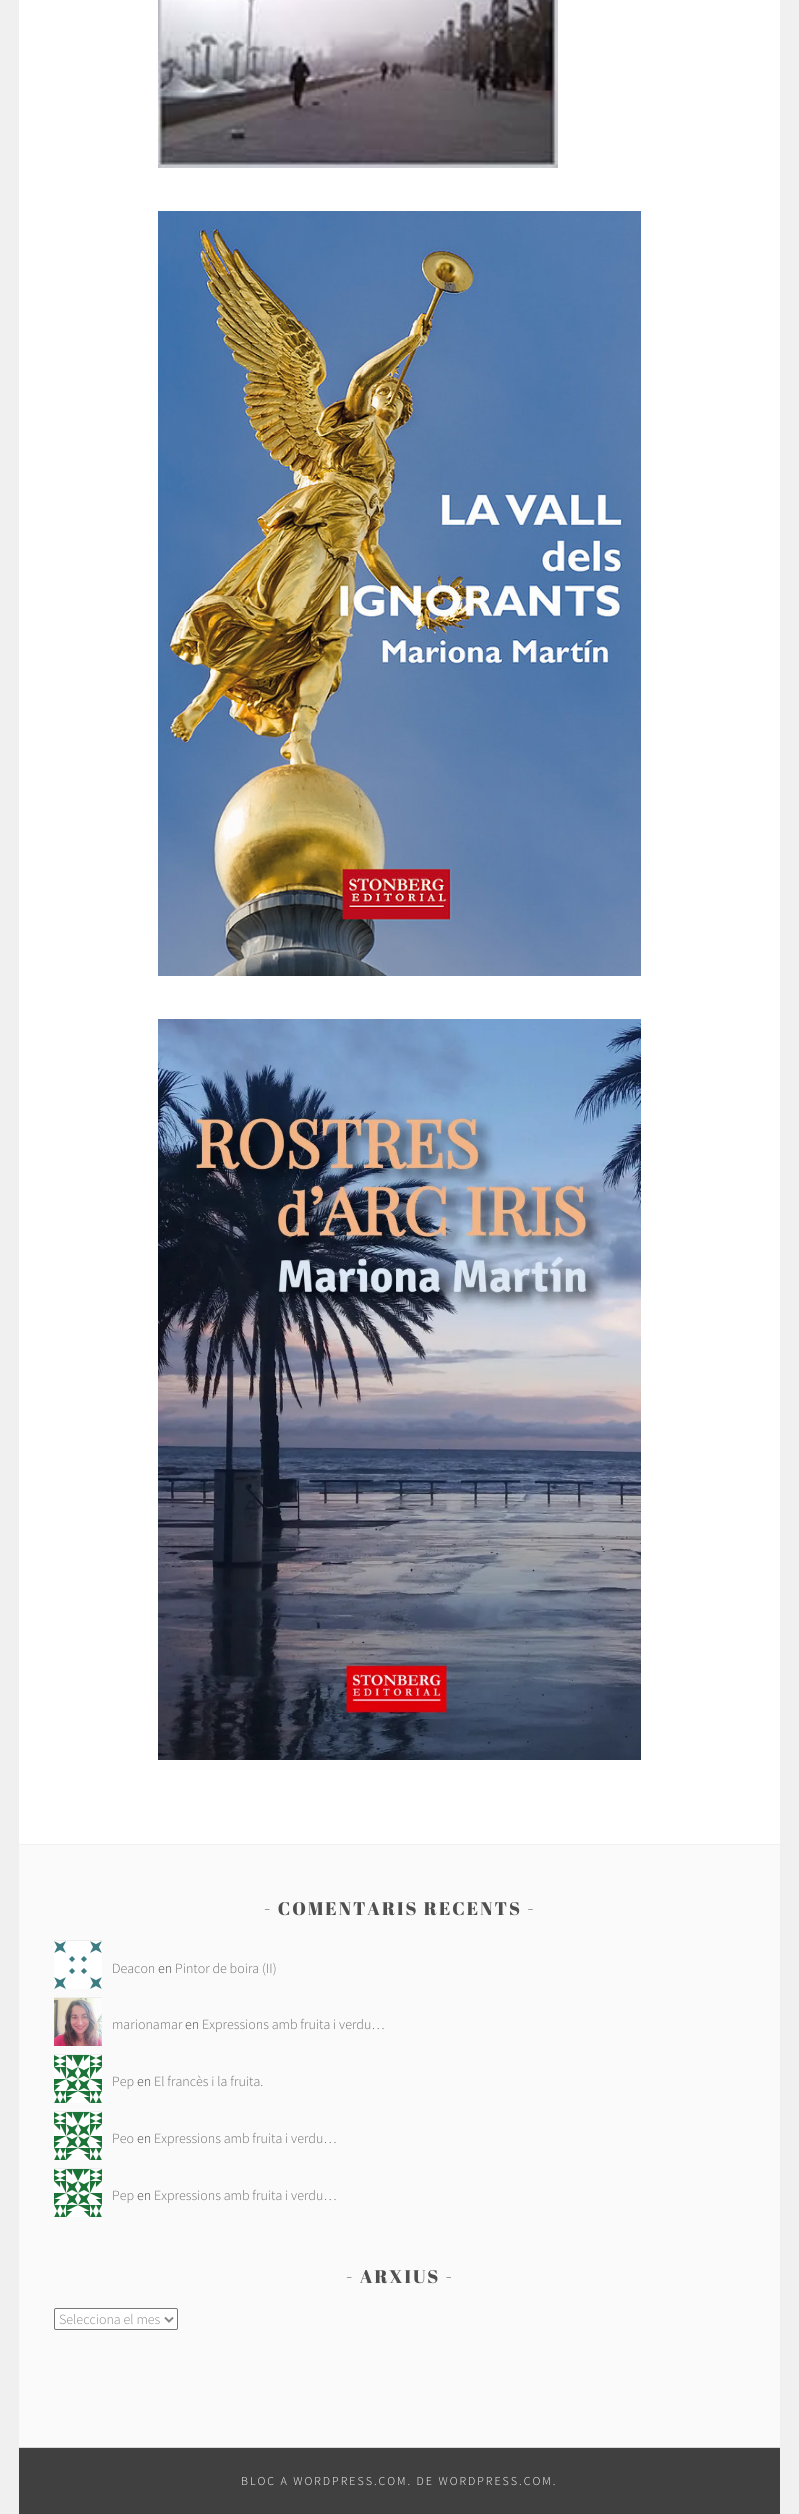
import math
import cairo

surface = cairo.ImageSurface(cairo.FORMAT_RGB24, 799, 2514)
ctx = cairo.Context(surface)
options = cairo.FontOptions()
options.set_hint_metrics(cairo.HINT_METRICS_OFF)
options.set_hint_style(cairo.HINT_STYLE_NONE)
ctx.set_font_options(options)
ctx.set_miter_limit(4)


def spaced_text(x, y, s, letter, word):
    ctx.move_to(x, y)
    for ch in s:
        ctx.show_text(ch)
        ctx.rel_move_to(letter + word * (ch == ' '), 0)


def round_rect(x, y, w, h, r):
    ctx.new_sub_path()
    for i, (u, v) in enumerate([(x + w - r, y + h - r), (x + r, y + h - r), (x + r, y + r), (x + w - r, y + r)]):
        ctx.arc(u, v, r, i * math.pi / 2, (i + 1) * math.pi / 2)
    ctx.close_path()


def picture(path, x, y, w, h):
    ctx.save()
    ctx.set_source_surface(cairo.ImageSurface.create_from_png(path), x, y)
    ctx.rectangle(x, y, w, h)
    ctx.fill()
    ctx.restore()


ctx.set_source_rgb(0.941, 0.941, 0.941)
ctx.paint()
ctx.set_source_rgb(1, 1, 1)
ctx.rectangle(19, 0, 761, 1844)
ctx.fill()
picture("img1.png", 158, 0, 400, 168)
picture("img2.png", 158, 211, 483, 765)
picture("img3.png", 158, 1019, 483, 741)
ctx.set_source_rgb(0.98, 0.98, 0.98)
ctx.rectangle(19, 1845, 761, 602)
ctx.fill()
ctx.select_font_face("Abril Fatface")
ctx.set_font_size(18.25)
ctx.set_source_rgb(0.31, 0.31, 0.31)
spaced_text(264, 1915, "- COMENTARIS RECENTS -", 2, 0)
ctx.set_source_rgb(0.933, 0.933, 0.933)
ctx.rectangle(54, 1940, 48, 1)
ctx.fill()
picture("img4.png", 54, 1941, 48, 48)
ctx.select_font_face("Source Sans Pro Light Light")
ctx.set_font_size(14)
ctx.set_source_rgb(0.427, 0.427, 0.427)
ctx.move_to(112, 1973)
ctx.show_text("Deacon")
ctx.set_source_rgb(0.251, 0.251, 0.251)
ctx.move_to(158, 1973)
ctx.show_text("en")
ctx.set_source_rgb(0.427, 0.427, 0.427)
ctx.move_to(175, 1973)
ctx.show_text("Pintor de boira (II)")
ctx.set_source_rgb(0.933, 0.933, 0.933)
ctx.rectangle(54, 1997, 48, 1)
ctx.fill()
picture("img5.png", 54, 1998, 48, 48)
ctx.set_source_rgb(0.427, 0.427, 0.427)
ctx.move_to(112, 2029)
ctx.show_text("marionamar")
ctx.set_source_rgb(0.251, 0.251, 0.251)
ctx.move_to(185, 2029)
ctx.show_text("en")
ctx.set_source_rgb(0.427, 0.427, 0.427)
ctx.move_to(202, 2029)
ctx.show_text("Expressions amb fruita i verdu…")
ctx.set_source_rgb(0.933, 0.933, 0.933)
ctx.rectangle(54, 2054, 48, 1)
ctx.fill()
picture("img6.png", 54, 2055, 48, 48)
ctx.set_source_rgb(0.427, 0.427, 0.427)
ctx.move_to(112, 2086)
ctx.show_text("Pep")
ctx.set_source_rgb(0.251, 0.251, 0.251)
ctx.move_to(137, 2086)
ctx.show_text("en")
ctx.set_source_rgb(0.427, 0.427, 0.427)
ctx.move_to(154, 2086)
ctx.show_text("El francès i la fruita.")
ctx.set_source_rgb(0.933, 0.933, 0.933)
ctx.rectangle(54, 2111, 48, 1)
ctx.fill()
picture("img6.png", 54, 2112, 48, 48)
ctx.set_source_rgb(0.427, 0.427, 0.427)
ctx.move_to(112, 2143)
ctx.show_text("Peo")
ctx.set_source_rgb(0.251, 0.251, 0.251)
ctx.move_to(137, 2143)
ctx.show_text("en")
ctx.set_source_rgb(0.427, 0.427, 0.427)
ctx.move_to(154, 2143)
ctx.show_text("Expressions amb fruita i verdu…")
ctx.set_source_rgb(0.933, 0.933, 0.933)
ctx.rectangle(54, 2168, 48, 1)
ctx.fill()
picture("img6.png", 54, 2169, 48, 48)
ctx.set_source_rgb(0.427, 0.427, 0.427)
ctx.move_to(112, 2200)
ctx.show_text("Pep")
ctx.set_source_rgb(0.251, 0.251, 0.251)
ctx.move_to(137, 2200)
ctx.show_text("en")
ctx.set_source_rgb(0.427, 0.427, 0.427)
ctx.move_to(154, 2200)
ctx.show_text("Expressions amb fruita i verdu…")
ctx.select_font_face("Abril Fatface")
ctx.set_font_size(18.25)
ctx.set_source_rgb(0.31, 0.31, 0.31)
spaced_text(346, 2283, "- ARXIUS -", 2, 0)
ctx.set_source_rgb(1, 1, 1)
round_rect(54.5, 2308.5, 123, 21, 1.5)
ctx.fill_preserve()
ctx.set_source_rgb(0.463, 0.463, 0.463)
ctx.set_line_width(1)
ctx.stroke()
ctx.new_path()
ctx.move_to(165, 2317.5)
ctx.line_to(169, 2321.5)
ctx.line_to(173, 2317.5)
ctx.set_source_rgb(0.533, 0.533, 0.533)
ctx.set_line_width(2)
ctx.stroke()
ctx.select_font_face("Source Sans Pro Light Light")
ctx.set_font_size(14)
ctx.move_to(59, 2324)
ctx.show_text("Selecciona el mes")
ctx.set_source_rgb(0.251, 0.251, 0.251)
ctx.rectangle(19, 2448, 761, 66)
ctx.fill()
ctx.set_source_rgb(0.851, 0.851, 0.851)
ctx.rectangle(19, 2447, 761, 1)
ctx.fill()
ctx.set_font_size(12)
ctx.set_source_rgb(1, 1, 1)
spaced_text(241, 2485, "BLOC A WORDPRESS.COM. DE WORDPRESS.COM.", 2, 0)
surface.write_to_png("page.png")
